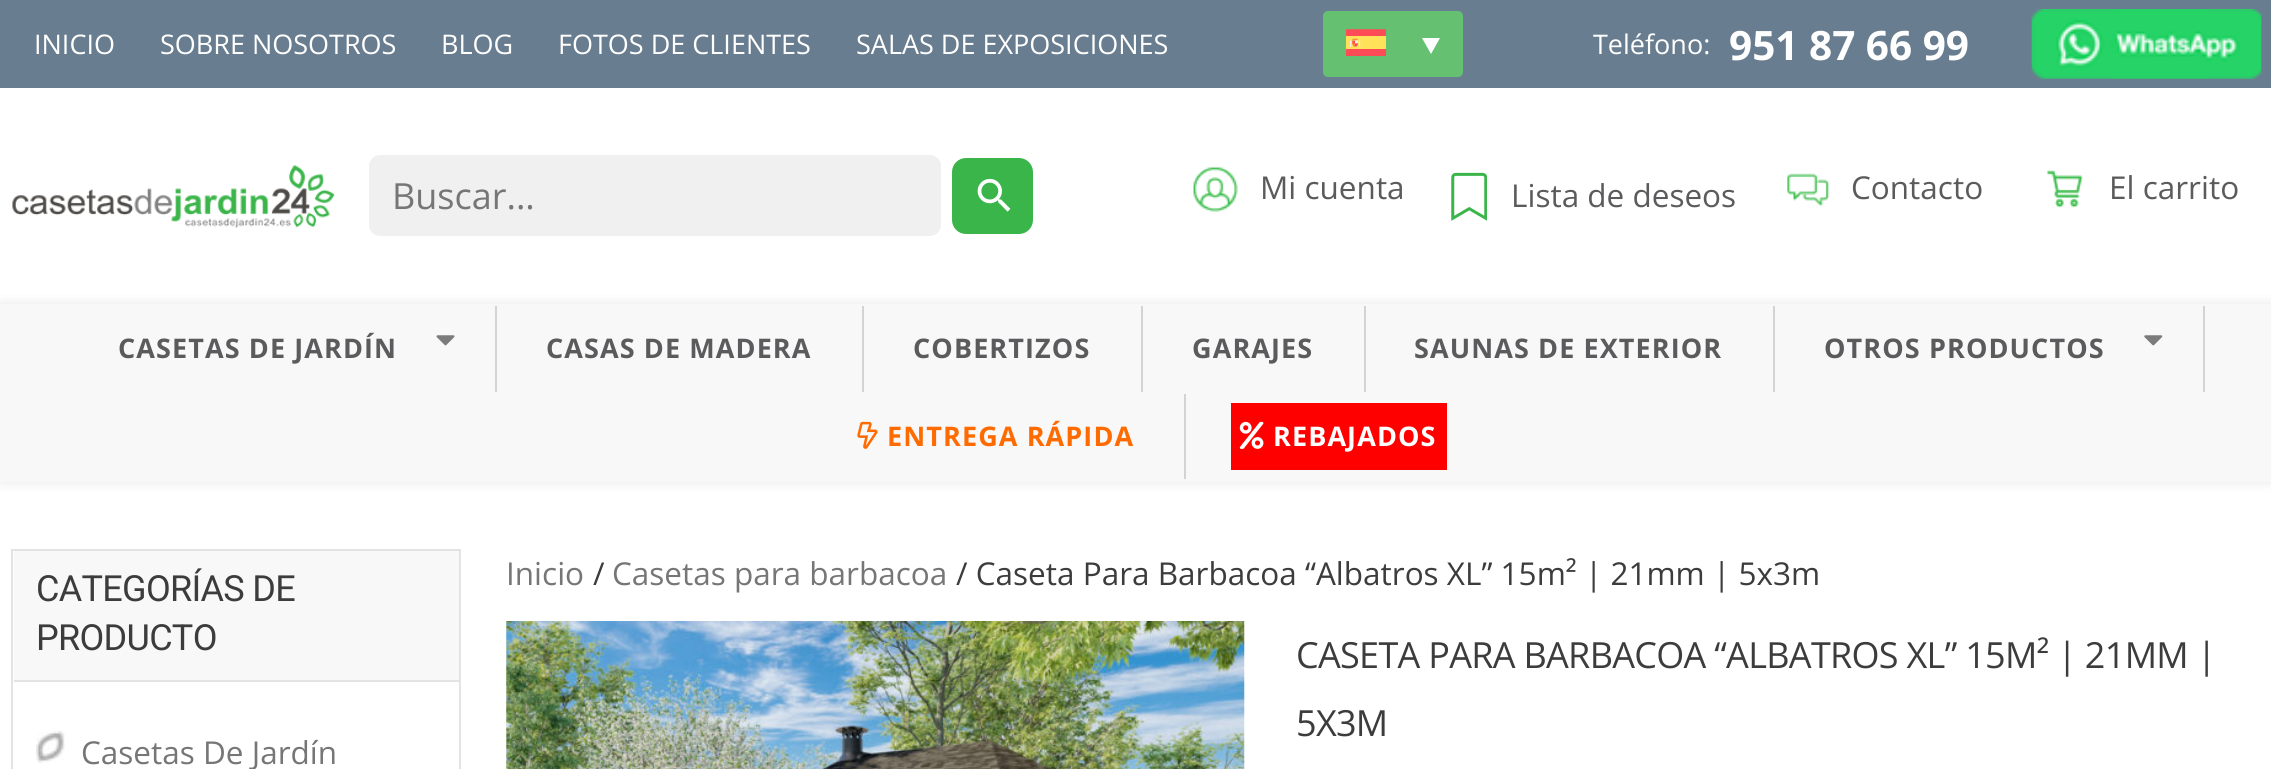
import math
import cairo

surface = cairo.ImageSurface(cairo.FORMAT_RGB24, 2271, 769)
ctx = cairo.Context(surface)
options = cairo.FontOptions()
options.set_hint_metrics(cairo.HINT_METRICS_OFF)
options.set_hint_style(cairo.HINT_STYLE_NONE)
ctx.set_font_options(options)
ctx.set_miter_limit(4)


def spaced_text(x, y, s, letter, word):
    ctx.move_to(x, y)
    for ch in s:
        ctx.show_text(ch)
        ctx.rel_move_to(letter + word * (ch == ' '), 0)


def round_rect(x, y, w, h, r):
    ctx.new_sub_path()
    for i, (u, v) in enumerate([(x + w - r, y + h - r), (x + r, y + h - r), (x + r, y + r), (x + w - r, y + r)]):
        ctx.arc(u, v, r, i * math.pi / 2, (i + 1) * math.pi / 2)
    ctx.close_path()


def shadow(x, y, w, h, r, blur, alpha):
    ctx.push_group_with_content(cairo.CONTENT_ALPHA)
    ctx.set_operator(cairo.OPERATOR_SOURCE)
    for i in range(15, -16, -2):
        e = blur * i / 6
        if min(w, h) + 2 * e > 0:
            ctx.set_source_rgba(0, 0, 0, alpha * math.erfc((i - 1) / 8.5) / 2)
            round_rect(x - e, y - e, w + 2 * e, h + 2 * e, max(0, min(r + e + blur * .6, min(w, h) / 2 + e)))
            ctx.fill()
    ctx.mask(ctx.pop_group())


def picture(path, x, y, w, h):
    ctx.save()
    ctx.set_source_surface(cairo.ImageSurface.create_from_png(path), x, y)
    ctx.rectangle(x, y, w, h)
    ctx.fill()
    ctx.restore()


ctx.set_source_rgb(1, 1, 1)
ctx.paint()
ctx.set_source_rgb(0.412, 0.49, 0.565)
ctx.rectangle(0, 0, 2271, 88)
ctx.fill()
ctx.select_font_face("Open Sans")
ctx.set_font_size(27)
ctx.set_source_rgb(1, 1, 1)
ctx.move_to(34, 54)
ctx.show_text("INICIO")
ctx.move_to(160, 54)
ctx.show_text("SOBRE NOSOTROS")
ctx.move_to(441, 54)
ctx.show_text("BLOG")
ctx.move_to(558, 54)
ctx.show_text("FOTOS DE CLIENTES")
ctx.move_to(856, 54)
ctx.show_text("SALAS DE EXPOSICIONES")
ctx.set_source_rgb(0.4, 0.753, 0.443)
round_rect(1323, 11, 140, 66, 5)
ctx.fill()
picture("img1.png", 1346, 29, 40, 27)
ctx.set_source_rgb(1, 1, 1)
ctx.new_path()
ctx.move_to(1422, 38)
ctx.line_to(1440, 38)
ctx.line_to(1431, 54)
ctx.close_path()
ctx.fill()
ctx.move_to(1593, 54)
ctx.show_text("Teléfono:")
ctx.select_font_face("Open Sans", cairo.FONT_SLANT_NORMAL, cairo.FONT_WEIGHT_BOLD)
ctx.set_font_size(40.5)
ctx.move_to(1729, 60)
ctx.show_text("951 87 66 99")
picture("img2.png", 2031, 9, 231, 70)
picture("img3.png", 12, 165, 323, 63)
ctx.set_source_rgb(0.941, 0.941, 0.941)
round_rect(369, 155, 572, 81, 11)
ctx.fill()
ctx.select_font_face("Open Sans")
ctx.set_font_size(36)
ctx.set_source_rgb(0.463, 0.463, 0.463)
ctx.move_to(392, 209)
ctx.show_text("Buscar...")
ctx.set_source_rgb(0.227, 0.71, 0.29)
round_rect(952, 158, 81, 76, 14)
ctx.fill()
picture("img4.png", 977, 178, 34, 34)
picture("img5.png", 1193, 167, 45, 45)
ctx.set_font_size(31.5)
ctx.set_source_rgb(0.357, 0.357, 0.365)
ctx.move_to(1260, 199)
ctx.show_text("Mi cuenta")
picture("img6.png", 1451, 172, 36, 49)
ctx.move_to(1511, 207)
ctx.show_text("Lista de deseos")
picture("img7.png", 1787, 173, 43, 34)
ctx.move_to(1851, 199)
ctx.show_text("Contacto")
picture("img8.png", 2047, 170, 36, 38)
ctx.move_to(2109, 199)
ctx.show_text("El carrito")
ctx.set_source_rgb(0, 0, 0)
shadow(0, 304, 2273, 178, 0, 5.5, 0.1)
ctx.set_source_rgb(0.969, 0.969, 0.969)
ctx.rectangle(0, 304, 2271, 178)
ctx.fill()
ctx.set_source_rgb(0.827, 0.827, 0.827)
ctx.rectangle(495, 306, 2, 86)
ctx.fill()
ctx.select_font_face("Open Sans", cairo.FONT_SLANT_NORMAL, cairo.FONT_WEIGHT_BOLD)
ctx.set_font_size(27)
ctx.set_source_rgb(0.357, 0.357, 0.365)
spaced_text(118, 358, "CASETAS DE JARDÍN", 1.1, 0)
picture("img9.png", 436, 335, 19, 11)
ctx.set_source_rgb(0.827, 0.827, 0.827)
ctx.rectangle(862, 306, 2, 86)
ctx.fill()
ctx.set_source_rgb(0.357, 0.357, 0.365)
spaced_text(546, 358, "CASAS DE MADERA", 1.1, 0)
ctx.set_source_rgb(0.827, 0.827, 0.827)
ctx.rectangle(1141, 306, 2, 86)
ctx.fill()
ctx.set_source_rgb(0.357, 0.357, 0.365)
spaced_text(913, 358, "COBERTIZOS", 1.1, 0)
ctx.set_source_rgb(0.827, 0.827, 0.827)
ctx.rectangle(1364, 306, 2, 86)
ctx.fill()
ctx.set_source_rgb(0.357, 0.357, 0.365)
spaced_text(1192, 358, "GARAJES", 1.1, 0)
ctx.set_source_rgb(0.827, 0.827, 0.827)
ctx.rectangle(1773, 306, 2, 86)
ctx.fill()
ctx.set_source_rgb(0.357, 0.357, 0.365)
spaced_text(1414, 358, "SAUNAS DE EXTERIOR", 1.1, 0)
ctx.set_source_rgb(0.827, 0.827, 0.827)
ctx.rectangle(2203, 306, 2, 86)
ctx.fill()
ctx.set_source_rgb(0.357, 0.357, 0.365)
spaced_text(1824, 358, "OTROS PRODUCTOS", 1.1, 0)
picture("img10.png", 2144, 335, 19, 11)
ctx.set_source_rgb(0.827, 0.827, 0.827)
ctx.rectangle(1184, 394, 2, 85)
ctx.fill()
picture("img11.png", 857, 421, 21, 28)
ctx.set_source_rgb(1, 0.42, 0)
spaced_text(887, 446, "ENTREGA RÁPIDA", 1.1, 0)
ctx.set_source_rgb(1, 0, 0)
ctx.rectangle(1231, 403, 216, 67)
ctx.fill()
picture("img12.png", 1239, 421, 25, 28)
ctx.set_source_rgb(1, 1, 1)
spaced_text(1273, 446, "REBAJADOS", 1.1, 0)
ctx.rectangle(12, 550, 448, 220)
ctx.set_source_rgb(0.89, 0.89, 0.89)
ctx.stroke()
ctx.set_source_rgb(0.969, 0.969, 0.969)
ctx.rectangle(14, 551, 445, 129)
ctx.fill()
ctx.set_source_rgb(0.89, 0.89, 0.89)
ctx.rectangle(14, 680, 445, 2)
ctx.fill()
ctx.select_font_face("Roboto")
ctx.set_font_size(36)
ctx.set_source_rgb(0.235, 0.235, 0.235)
spaced_text(36, 601, "CATEGORÍAS DE", -0.7, 0)
spaced_text(36, 650, "PRODUCTO", -0.7, 0)
picture("img13.png", 36, 731, 29, 32)
ctx.select_font_face("Open Sans")
ctx.set_font_size(31.5)
ctx.set_source_rgb(0.463, 0.463, 0.463)
ctx.move_to(81, 764)
ctx.show_text("Casetas De Jardín")
ctx.move_to(506, 585)
ctx.show_text("Inicio")
ctx.set_source_rgb(0.235, 0.235, 0.235)
ctx.move_to(593, 585)
ctx.show_text("/")
ctx.set_source_rgb(0.463, 0.463, 0.463)
ctx.move_to(612, 585)
ctx.show_text("Casetas para barbacoa")
ctx.set_source_rgb(0.235, 0.235, 0.235)
ctx.move_to(956, 585)
ctx.show_text("/ Caseta Para Barbacoa “Albatros XL” 15m² | 21mm | 5x3m")
picture("img14.png", 506, 621, 739, 148)
ctx.set_font_size(36)
spaced_text(1296, 668, "CASETA PARA BARBACOA “ALBATROS XL” 15M² | 21MM |", -0.7, 0)
spaced_text(1296, 736, "5X3M", -0.7, 0)
surface.write_to_png("page.png")
